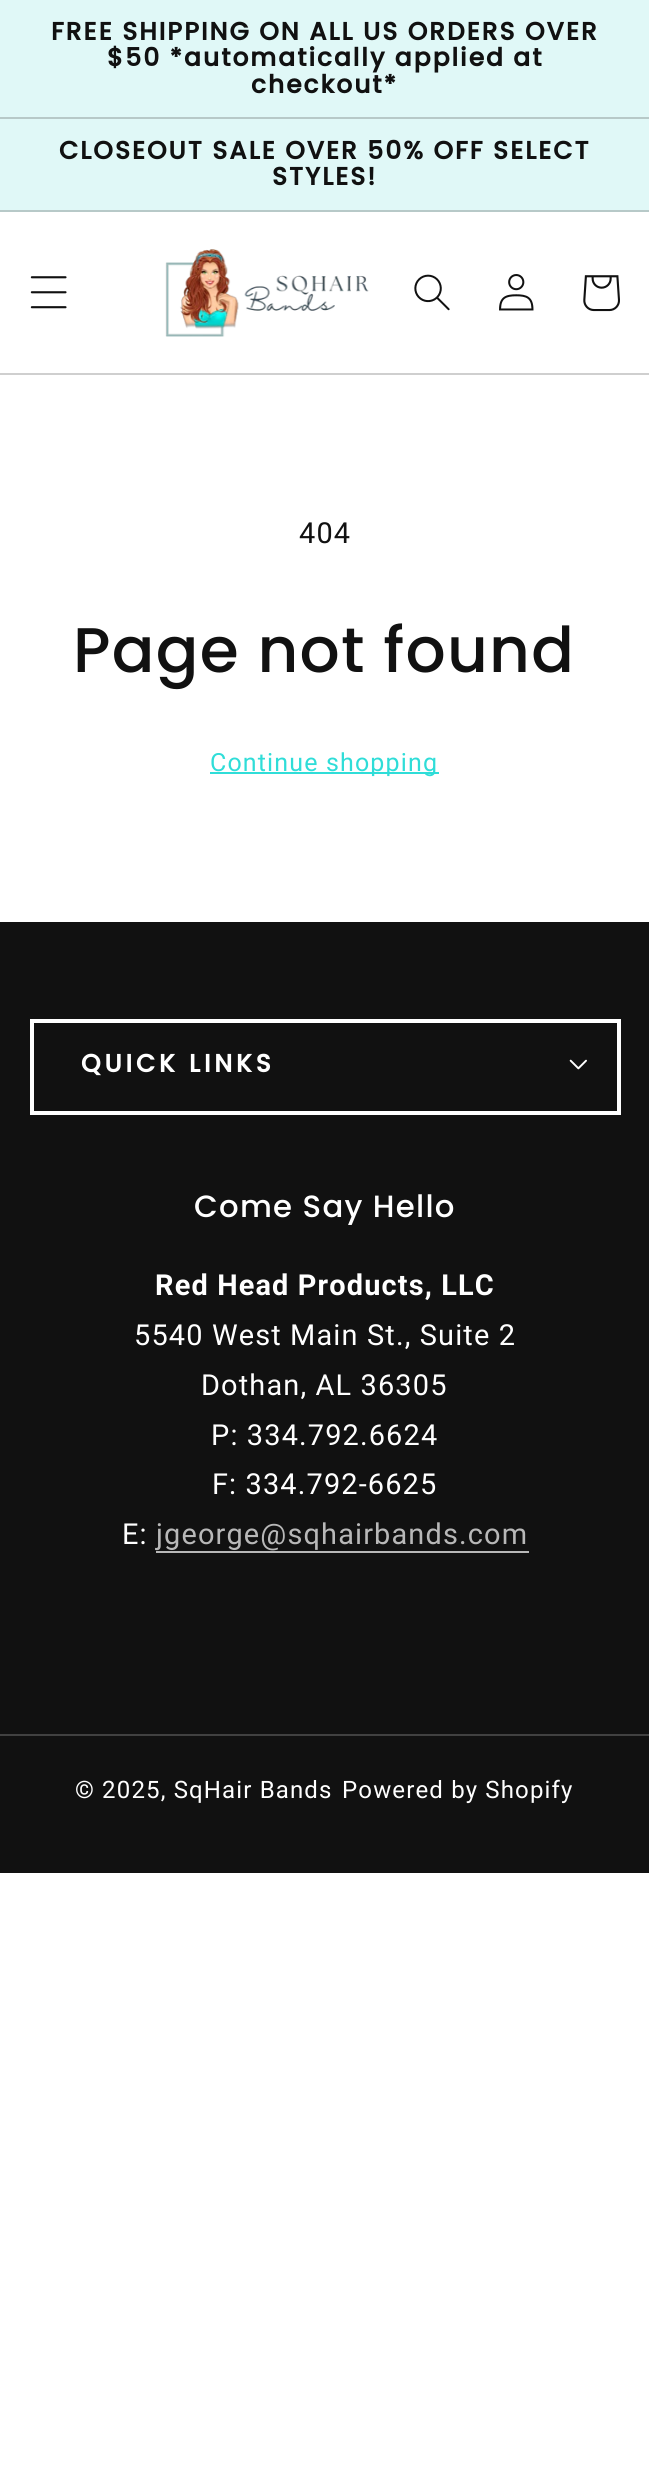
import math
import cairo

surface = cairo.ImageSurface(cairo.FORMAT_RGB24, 649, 2469)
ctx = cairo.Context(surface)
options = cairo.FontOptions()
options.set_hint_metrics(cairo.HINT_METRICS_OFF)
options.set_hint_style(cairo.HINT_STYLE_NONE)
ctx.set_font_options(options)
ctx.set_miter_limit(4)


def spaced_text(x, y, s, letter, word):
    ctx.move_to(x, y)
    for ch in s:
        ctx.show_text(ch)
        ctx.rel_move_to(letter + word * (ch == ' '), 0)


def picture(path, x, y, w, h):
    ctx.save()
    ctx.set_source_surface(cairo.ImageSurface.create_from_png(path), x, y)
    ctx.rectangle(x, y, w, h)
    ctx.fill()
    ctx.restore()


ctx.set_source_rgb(1, 1, 1)
ctx.paint()
ctx.set_source_rgb(0.878, 0.969, 0.965)
ctx.rectangle(0, 0, 649, 117)
ctx.fill()
ctx.set_source_rgb(0.718, 0.788, 0.784)
ctx.rectangle(0, 117, 649, 2)
ctx.fill()
ctx.select_font_face("Poppins", cairo.FONT_SLANT_NORMAL, cairo.FONT_WEIGHT_BOLD)
ctx.set_font_size(25)
ctx.set_source_rgb(0.067, 0.067, 0.067)
spaced_text(51, 40, "FREE SHIPPING ON ALL US ORDERS OVER", 1.95, 0)
spaced_text(107, 66, "$50 *automatically applied at", 1.95, 0)
spaced_text(251, 93, "checkout*", 1.95, 0)
ctx.set_source_rgb(0.878, 0.969, 0.965)
ctx.rectangle(0, 119, 649, 91)
ctx.fill()
ctx.set_source_rgb(0.718, 0.788, 0.784)
ctx.rectangle(0, 210, 649, 2)
ctx.fill()
ctx.set_source_rgb(0.067, 0.067, 0.067)
spaced_text(59, 159, "CLOSEOUT SALE OVER 50% OFF SELECT", 1.95, 0)
spaced_text(272, 185, "STYLES!", 1.95, 0)
ctx.set_source_rgb(0.812, 0.812, 0.812)
ctx.rectangle(0, 373, 649, 2)
ctx.fill()
picture("img1.png", 30, 276, 37, 33)
picture("img2.png", 165, 249, 204, 88)
picture("img3.png", 414, 274, 36, 37)
picture("img4.png", 499, 274, 35, 37)
picture("img5.png", 583, 275, 37, 37)
ctx.select_font_face("Roboto")
ctx.set_font_size(28.9)
ctx.set_source_rgb(0.067, 0.067, 0.067)
spaced_text(299, 543, "404", 1.15, 0)
ctx.select_font_face("Poppins Medium")
ctx.set_font_size(63)
spaced_text(73, 672, "Page not found", 1.25, 0)
ctx.set_source_rgb(0.184, 0.867, 0.847)
ctx.rectangle(210, 772, 229, 2)
ctx.fill()
ctx.select_font_face("Roboto")
ctx.set_font_size(25)
spaced_text(210, 771, "Continue shopping", 1.15, 0)
ctx.set_source_rgb(0.067, 0.067, 0.067)
ctx.rectangle(0, 922, 649, 951)
ctx.fill()
ctx.rectangle(32, 1021, 587, 92)
ctx.set_source_rgb(1, 1, 1)
ctx.set_line_width(4)
ctx.stroke()
ctx.select_font_face("Poppins", cairo.FONT_SLANT_NORMAL, cairo.FONT_WEIGHT_BOLD)
spaced_text(81, 1072, "QUICK LINKS", 3.8, 0)
picture("img6.png", 569, 1059, 18, 11)
ctx.select_font_face("Poppins Medium")
ctx.set_font_size(30.75)
spaced_text(194, 1217, "Come Say Hello", 1.25, 0)
ctx.select_font_face("Roboto", cairo.FONT_SLANT_NORMAL, cairo.FONT_WEIGHT_BOLD)
ctx.set_font_size(28.9)
spaced_text(155, 1295, "Red Head Products, LLC", 1.15, 0)
ctx.select_font_face("Roboto")
spaced_text(134, 1345, "5540 West Main St., Suite 2", 1.15, 0)
spaced_text(201, 1395, "Dothan, AL 36305", 1.15, 0)
spaced_text(211, 1445, "P: 334.792.6624", 1.15, 0)
spaced_text(212, 1494, "F: 334.792-6625", 1.15, 0)
spaced_text(122, 1544, "E:", 1.15, 0)
ctx.set_source_rgb(0.722, 0.722, 0.722)
spaced_text(156, 1544, "jgeorge@sqhairbands.com", 1.15, 0)
ctx.rectangle(156, 1551, 373, 2)
ctx.fill()
ctx.set_source_rgb(0.255, 0.255, 0.255)
ctx.rectangle(0, 1734, 649, 2)
ctx.fill()
ctx.set_font_size(24)
ctx.set_source_rgb(1, 1, 1)
spaced_text(75, 1798, "© 2025, SqHair Bands", 1.15, 0)
spaced_text(342, 1798, "Powered by Shopify", 1.15, 0)
surface.write_to_png("page.png")
